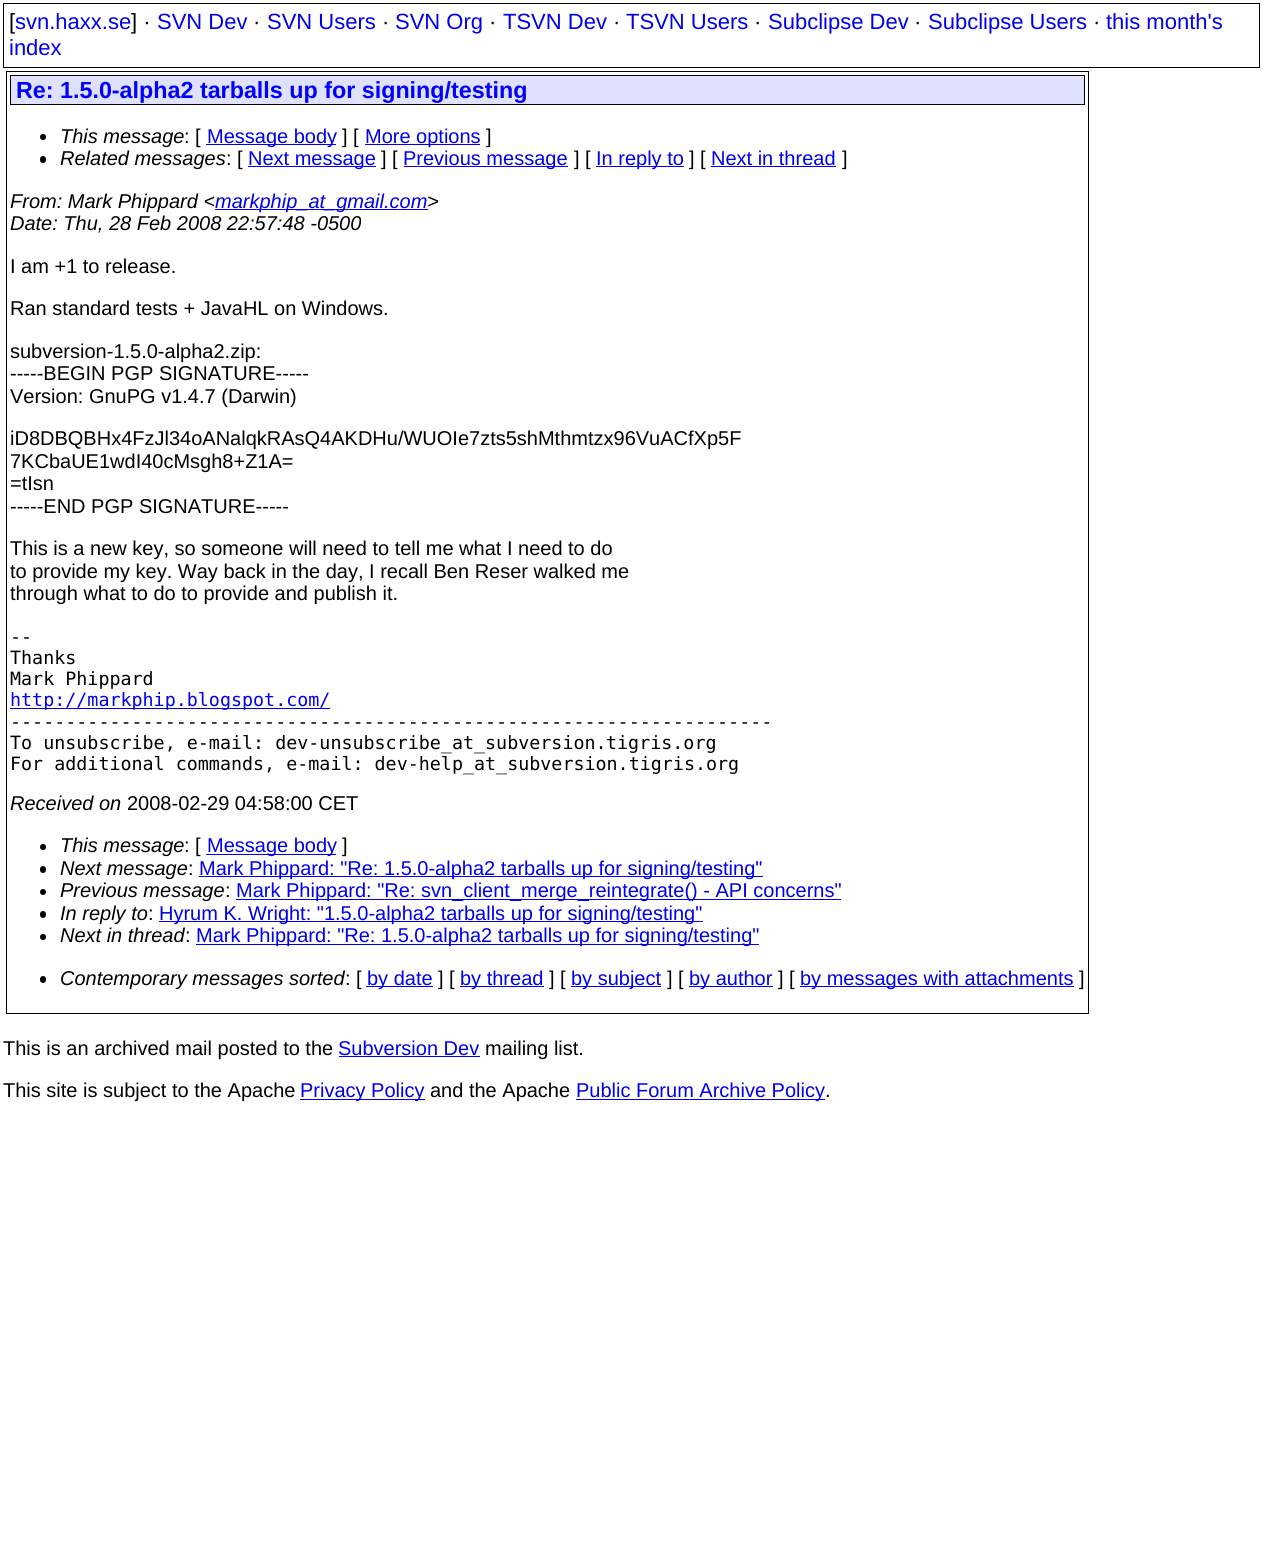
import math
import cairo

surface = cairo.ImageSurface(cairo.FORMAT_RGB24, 1262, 1547)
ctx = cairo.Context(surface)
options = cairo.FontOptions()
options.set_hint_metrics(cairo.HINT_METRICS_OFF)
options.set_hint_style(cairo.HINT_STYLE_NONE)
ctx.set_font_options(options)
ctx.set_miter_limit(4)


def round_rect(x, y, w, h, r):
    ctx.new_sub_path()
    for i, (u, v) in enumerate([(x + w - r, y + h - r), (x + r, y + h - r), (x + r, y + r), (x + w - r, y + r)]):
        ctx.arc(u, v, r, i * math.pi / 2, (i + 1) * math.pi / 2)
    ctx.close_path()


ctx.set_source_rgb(1, 1, 1)
ctx.paint()
ctx.rectangle(3.5, 3.5, 1256, 64)
ctx.set_source_rgb(0, 0, 0)
ctx.set_line_width(1)
ctx.stroke()
ctx.select_font_face("Liberation Sans")
ctx.set_font_size(22)
ctx.move_to(9, 29)
ctx.show_text("[")
ctx.set_source_rgb(0, 0, 0.933)
ctx.move_to(15, 29)
ctx.show_text("svn.haxx.se")
ctx.set_source_rgb(0, 0, 0)
ctx.move_to(131, 29)
ctx.show_text("] ·")
ctx.set_source_rgb(0, 0, 0.933)
ctx.move_to(157, 29)
ctx.show_text("SVN Dev")
ctx.set_source_rgb(0, 0, 0)
ctx.move_to(253, 29)
ctx.show_text("·")
ctx.set_source_rgb(0, 0, 0.933)
ctx.move_to(267, 29)
ctx.show_text("SVN Users")
ctx.set_source_rgb(0, 0, 0)
ctx.move_to(382, 29)
ctx.show_text("·")
ctx.set_source_rgb(0, 0, 0.933)
ctx.move_to(395, 29)
ctx.show_text("SVN Org")
ctx.set_source_rgb(0, 0, 0)
ctx.move_to(489, 29)
ctx.show_text("·")
ctx.set_source_rgb(0, 0, 0.933)
ctx.move_to(503, 29)
ctx.show_text("TSVN Dev")
ctx.set_source_rgb(0, 0, 0)
ctx.move_to(613, 29)
ctx.show_text("·")
ctx.set_source_rgb(0, 0, 0.933)
ctx.move_to(626, 29)
ctx.show_text("TSVN Users")
ctx.set_source_rgb(0, 0, 0)
ctx.move_to(754, 29)
ctx.show_text("·")
ctx.set_source_rgb(0, 0, 0.933)
ctx.move_to(768, 29)
ctx.show_text("Subclipse Dev")
ctx.set_source_rgb(0, 0, 0)
ctx.move_to(914, 29)
ctx.show_text("·")
ctx.set_source_rgb(0, 0, 0.933)
ctx.move_to(928, 29)
ctx.show_text("Subclipse Users")
ctx.set_source_rgb(0, 0, 0)
ctx.move_to(1093, 29)
ctx.show_text("·")
ctx.set_source_rgb(0, 0, 0.933)
ctx.move_to(1106, 29)
ctx.show_text("this month's")
ctx.move_to(9, 55)
ctx.show_text("index")
ctx.rectangle(6.5, 71.5, 1082, 942)
ctx.set_source_rgb(0, 0, 0)
ctx.stroke()
ctx.set_source_rgb(0.878, 0.878, 1)
ctx.rectangle(10.5, 75.5, 1074, 29)
ctx.fill_preserve()
ctx.set_source_rgb(0, 0, 0)
ctx.stroke()
ctx.select_font_face("Liberation Sans", cairo.FONT_SLANT_NORMAL, cairo.FONT_WEIGHT_BOLD)
ctx.set_font_size(23.3)
ctx.set_source_rgb(0, 0, 1)
ctx.move_to(16, 98)
ctx.show_text("Re: 1.5.0-alpha2 tarballs up for signing/testing")
ctx.set_source_rgb(0, 0, 0)
ctx.new_path()
ctx.arc(43, 137, 3, 0, 2 * math.pi)
ctx.fill()
ctx.select_font_face("Liberation Sans", cairo.FONT_SLANT_ITALIC)
ctx.set_font_size(20)
ctx.move_to(60, 143)
ctx.show_text("This message")
ctx.select_font_face("Liberation Sans")
ctx.move_to(184, 143)
ctx.show_text(": [")
ctx.set_source_rgb(0, 0, 0.933)
ctx.rectangle(206, 144, 130, 1)
ctx.fill()
ctx.move_to(207, 143)
ctx.show_text("Message body")
ctx.set_source_rgb(0, 0, 0)
ctx.move_to(342, 143)
ctx.show_text("] [")
ctx.set_source_rgb(0, 0, 0.933)
ctx.rectangle(365, 144, 115, 1)
ctx.fill()
ctx.move_to(365, 143)
ctx.show_text("More options")
ctx.set_source_rgb(0, 0, 0)
ctx.move_to(486, 143)
ctx.show_text("]")
round_rect(40, 156, 6, 7, 3)
ctx.fill()
ctx.select_font_face("Liberation Sans", cairo.FONT_SLANT_ITALIC)
ctx.move_to(60, 165)
ctx.show_text("Related messages")
ctx.select_font_face("Liberation Sans")
ctx.move_to(226, 165)
ctx.show_text(": [")
ctx.set_source_rgb(0, 0, 0.933)
ctx.rectangle(248, 166, 128, 1)
ctx.fill()
ctx.move_to(248, 165)
ctx.show_text("Next message")
ctx.set_source_rgb(0, 0, 0)
ctx.move_to(381, 165)
ctx.show_text("] [")
ctx.set_source_rgb(0, 0, 0.933)
ctx.rectangle(404, 166, 164, 1)
ctx.fill()
ctx.move_to(403, 165)
ctx.show_text("Previous message")
ctx.set_source_rgb(0, 0, 0)
ctx.move_to(574, 165)
ctx.show_text("] [")
ctx.set_source_rgb(0, 0, 0.933)
ctx.rectangle(596, 166, 88, 1)
ctx.fill()
ctx.move_to(596, 165)
ctx.show_text("In reply to")
ctx.set_source_rgb(0, 0, 0)
ctx.move_to(689, 165)
ctx.show_text("] [")
ctx.set_source_rgb(0, 0, 0.933)
ctx.move_to(711, 165)
ctx.show_text("Next in thread")
ctx.rectangle(711, 166, 125, 1)
ctx.fill()
ctx.set_source_rgb(0, 0, 0)
ctx.move_to(842, 165)
ctx.show_text("]")
ctx.select_font_face("Liberation Sans", cairo.FONT_SLANT_ITALIC)
ctx.move_to(10, 208)
ctx.show_text("From: Mark Phippard <")
ctx.set_source_rgb(0, 0, 0.933)
ctx.rectangle(215, 209, 213, 1)
ctx.fill()
ctx.move_to(215, 208)
ctx.show_text("markphip_at_gmail.com")
ctx.set_source_rgb(0, 0, 0)
ctx.move_to(427, 208)
ctx.show_text(">")
ctx.move_to(10, 230)
ctx.show_text("Date: Thu, 28 Feb 2008 22:57:48 -0500")
ctx.select_font_face("Liberation Sans")
ctx.move_to(10, 273)
ctx.show_text("I am +1 to release.")
ctx.move_to(10, 315)
ctx.show_text("Ran standard tests + JavaHL on Windows.")
ctx.move_to(10, 358)
ctx.show_text("subversion-1.5.0-alpha2.zip:")
ctx.move_to(10, 380)
ctx.show_text("-----BEGIN PGP SIGNATURE-----")
ctx.move_to(10, 403)
ctx.show_text("Version: GnuPG v1.4.7 (Darwin)")
ctx.move_to(10, 445)
ctx.show_text("iD8DBQBHx4FzJl34oANalqkRAsQ4AKDHu/WUOIe7zts5shMthmtzx96VuACfXp5F")
ctx.move_to(10, 468)
ctx.show_text("7KCbaUE1wdI40cMsgh8+Z1A=")
ctx.move_to(10, 490)
ctx.show_text("=tIsn")
ctx.move_to(10, 513)
ctx.show_text("-----END PGP SIGNATURE-----")
ctx.move_to(10, 555)
ctx.show_text("This is a new key, so someone will need to tell me what I need to do")
ctx.move_to(10, 578)
ctx.show_text("to provide my key. Way back in the day, I recall Ben Reser walked me")
ctx.move_to(10, 600)
ctx.show_text("through what to do to provide and publish it.")
ctx.select_font_face("DejaVu Sans Mono")
ctx.set_font_size(18.35)
ctx.move_to(10, 643)
ctx.show_text("--")
ctx.move_to(10, 664)
ctx.show_text("Thanks")
ctx.move_to(10, 685)
ctx.show_text("Mark Phippard")
ctx.set_source_rgb(0, 0, 0.933)
ctx.rectangle(10, 708, 320, 1)
ctx.fill()
ctx.move_to(10, 706)
ctx.show_text("http://markphip.blogspot.com/")
ctx.set_source_rgb(0, 0, 0)
ctx.move_to(10, 728)
ctx.show_text("---------------------------------------------------------------------")
ctx.move_to(10, 749)
ctx.show_text("To unsubscribe, e-mail: dev-unsubscribe_at_subversion.")
ctx.move_to(606, 749)
ctx.show_text("tigris.org")
ctx.move_to(10, 770)
ctx.show_text("For additional commands, e-mail: dev-help_at_subversion.tigris.org")
ctx.select_font_face("Liberation Sans", cairo.FONT_SLANT_ITALIC)
ctx.set_font_size(20)
ctx.move_to(10, 810)
ctx.show_text("Received on")
ctx.select_font_face("Liberation Sans")
ctx.move_to(127, 810)
ctx.show_text("2008-02-29 04:58:00 CET")
ctx.new_path()
ctx.arc(43, 847, 3, 0, 2 * math.pi)
ctx.fill()
ctx.select_font_face("Liberation Sans", cairo.FONT_SLANT_ITALIC)
ctx.move_to(60, 852)
ctx.show_text("This message")
ctx.select_font_face("Liberation Sans")
ctx.move_to(184, 852)
ctx.show_text(": [")
ctx.set_source_rgb(0, 0, 0.933)
ctx.rectangle(206, 854, 130, 1)
ctx.fill()
ctx.move_to(207, 852)
ctx.show_text("Message body")
ctx.set_source_rgb(0, 0, 0)
ctx.move_to(342, 852)
ctx.show_text("]")
round_rect(40, 866, 6, 7, 3)
ctx.fill()
ctx.select_font_face("Liberation Sans", cairo.FONT_SLANT_ITALIC)
ctx.move_to(60, 875)
ctx.show_text("Next message")
ctx.select_font_face("Liberation Sans")
ctx.move_to(188, 875)
ctx.show_text(":")
ctx.set_source_rgb(0, 0, 0.933)
ctx.rectangle(199, 876, 564, 1)
ctx.fill()
ctx.move_to(199, 875)
ctx.show_text("Mark Phippard: \"Re: 1.5.0-alpha2 tarballs up for signing/testing\"")
ctx.set_source_rgb(0, 0, 0)
ctx.new_path()
ctx.arc(43, 892, 3, 0, 2 * math.pi)
ctx.fill()
ctx.select_font_face("Liberation Sans", cairo.FONT_SLANT_ITALIC)
ctx.move_to(60, 897)
ctx.show_text("Previous message")
ctx.select_font_face("Liberation Sans")
ctx.move_to(225, 897)
ctx.show_text(":")
ctx.set_source_rgb(0, 0, 0.933)
ctx.rectangle(236, 899, 605, 1)
ctx.fill()
ctx.move_to(236, 897)
ctx.show_text("Mark Phippard: \"Re: svn_client_merge_reintegrate() - API concerns\"")
ctx.set_source_rgb(0, 0, 0)
round_rect(40, 911, 6, 7, 3)
ctx.fill()
ctx.select_font_face("Liberation Sans", cairo.FONT_SLANT_ITALIC)
ctx.move_to(60, 920)
ctx.show_text("In reply to")
ctx.select_font_face("Liberation Sans")
ctx.move_to(148, 920)
ctx.show_text(":")
ctx.set_source_rgb(0, 0, 0.933)
ctx.rectangle(159, 921, 544, 1)
ctx.fill()
ctx.move_to(159, 920)
ctx.show_text("Hyrum K. Wright: \"1.5.0-alpha2 tarballs up for signing/testing\"")
ctx.set_source_rgb(0, 0, 0)
ctx.new_path()
ctx.arc(43, 937, 3, 0, 2 * math.pi)
ctx.fill()
ctx.select_font_face("Liberation Sans", cairo.FONT_SLANT_ITALIC)
ctx.move_to(60, 942)
ctx.show_text("Next in thread")
ctx.select_font_face("Liberation Sans")
ctx.move_to(185, 942)
ctx.show_text(":")
ctx.set_source_rgb(0, 0, 0.933)
ctx.rectangle(196, 944, 563, 1)
ctx.fill()
ctx.move_to(196, 942)
ctx.show_text("Mark Phippard: \"Re: 1.5.0-alpha2 tarballs up for signing/testing\"")
ctx.set_source_rgb(0, 0, 0)
round_rect(40, 976, 6, 7, 3)
ctx.fill()
ctx.select_font_face("Liberation Sans", cairo.FONT_SLANT_ITALIC)
ctx.move_to(60, 985)
ctx.show_text("Contemporary messages sorted")
ctx.select_font_face("Liberation Sans")
ctx.move_to(345, 985)
ctx.show_text(": [")
ctx.set_source_rgb(0, 0, 0.933)
ctx.rectangle(366, 986, 67, 1)
ctx.fill()
ctx.move_to(367, 985)
ctx.show_text("by date")
ctx.set_source_rgb(0, 0, 0)
ctx.move_to(438, 985)
ctx.show_text("] [")
ctx.set_source_rgb(0, 0, 0.933)
ctx.rectangle(460, 986, 84, 1)
ctx.fill()
ctx.move_to(460, 985)
ctx.show_text("by thread")
ctx.set_source_rgb(0, 0, 0)
ctx.move_to(549, 985)
ctx.show_text("] [")
ctx.set_source_rgb(0, 0, 0.933)
ctx.rectangle(571, 986, 90, 1)
ctx.fill()
ctx.move_to(571, 985)
ctx.show_text("by subject")
ctx.set_source_rgb(0, 0, 0)
ctx.move_to(667, 985)
ctx.show_text("] [")
ctx.set_source_rgb(0, 0, 0.933)
ctx.rectangle(689, 986, 84, 1)
ctx.fill()
ctx.move_to(689, 985)
ctx.show_text("by author")
ctx.set_source_rgb(0, 0, 0)
ctx.move_to(778, 985)
ctx.show_text("] [")
ctx.set_source_rgb(0, 0, 0.933)
ctx.rectangle(800, 986, 274, 1)
ctx.fill()
ctx.move_to(800, 985)
ctx.show_text("by messages with attachments")
ctx.set_source_rgb(0, 0, 0)
ctx.move_to(1079, 985)
ctx.show_text("]")
ctx.move_to(3, 1055)
ctx.show_text("This is an archived mail posted to the")
ctx.set_source_rgb(0, 0, 0.933)
ctx.move_to(338, 1055)
ctx.show_text("Subversion Dev")
ctx.rectangle(339, 1056, 141, 1)
ctx.fill()
ctx.set_source_rgb(0, 0, 0)
ctx.move_to(485, 1055)
ctx.show_text("mailing list.")
ctx.move_to(3, 1097)
ctx.show_text("This site is subject to the Apache")
ctx.set_source_rgb(0, 0, 0.933)
ctx.rectangle(300, 1099, 125, 1)
ctx.fill()
ctx.move_to(300, 1097)
ctx.show_text("Privacy Policy")
ctx.set_source_rgb(0, 0, 0)
ctx.move_to(430, 1097)
ctx.show_text("and the Apache")
ctx.set_source_rgb(0, 0, 0.933)
ctx.rectangle(576, 1099, 249, 1)
ctx.fill()
ctx.move_to(576, 1097)
ctx.show_text("Public Forum Archive Policy")
ctx.set_source_rgb(0, 0, 0)
ctx.move_to(825, 1097)
ctx.show_text(".")
surface.write_to_png("page.png")
